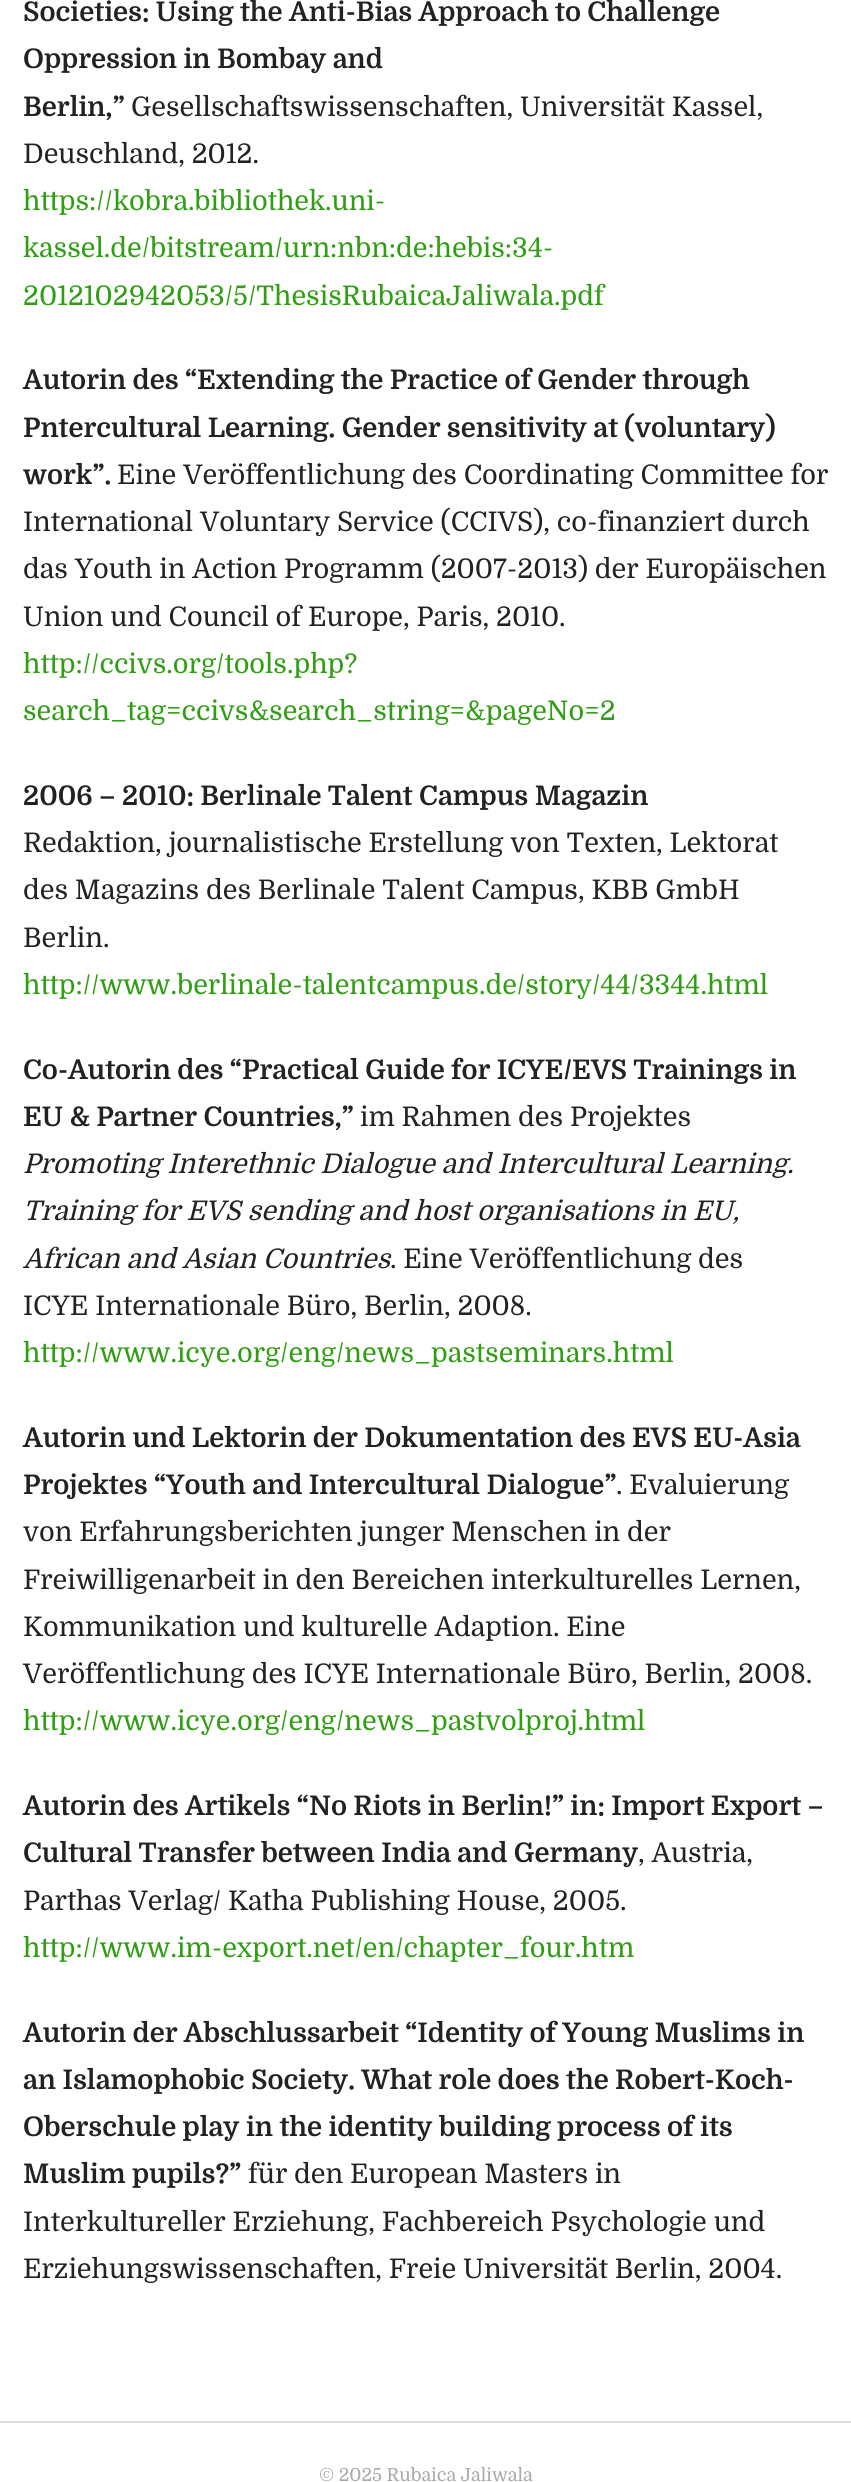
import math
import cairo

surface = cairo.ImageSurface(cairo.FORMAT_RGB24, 851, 2482)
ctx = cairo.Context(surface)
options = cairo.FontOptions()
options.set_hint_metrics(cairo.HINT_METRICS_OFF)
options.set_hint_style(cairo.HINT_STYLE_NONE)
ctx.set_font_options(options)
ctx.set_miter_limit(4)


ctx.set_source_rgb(1, 1, 1)
ctx.paint()
ctx.select_font_face("Domine", cairo.FONT_SLANT_NORMAL, cairo.FONT_WEIGHT_BOLD)
ctx.set_font_size(27)
ctx.set_source_rgb(0.133, 0.133, 0.133)
ctx.move_to(23, 21)
ctx.show_text("Societies: Using the Anti-Bias Approach to Challenge")
ctx.move_to(23, 68)
ctx.show_text("Oppression in Bombay and")
ctx.move_to(23, 116)
ctx.show_text("Berlin,”")
ctx.select_font_face("Domine")
ctx.move_to(131, 116)
ctx.show_text("Gesellschaftswissenschaften, Universität Kassel,")
ctx.move_to(23, 163)
ctx.show_text("Deuschland, 2012.")
ctx.set_source_rgb(0.188, 0.62, 0.078)
ctx.move_to(23, 210)
ctx.show_text("https://kobra.bibliothek.uni-")
ctx.move_to(23, 257)
ctx.show_text("kassel.de/bitstream/urn:nbn:de:hebis:34-")
ctx.move_to(23, 305)
ctx.show_text("2012102942053/5/ThesisRubaicaJaliwala.pdf")
ctx.select_font_face("Domine", cairo.FONT_SLANT_NORMAL, cairo.FONT_WEIGHT_BOLD)
ctx.set_source_rgb(0.133, 0.133, 0.133)
ctx.move_to(23, 389)
ctx.show_text("Autorin des “Extending the Practice of Gender through")
ctx.move_to(23, 437)
ctx.show_text("Pntercultural Learning. Gender sensitivity at (voluntary)")
ctx.move_to(23, 484)
ctx.show_text("work”.")
ctx.select_font_face("Domine")
ctx.move_to(117, 484)
ctx.show_text("Eine Veröffentlichung des Coordinating Committee for")
ctx.move_to(23, 531)
ctx.show_text("International Voluntary Service (CCIVS), co-finanziert durch")
ctx.move_to(23, 578)
ctx.show_text("das Youth in Action Programm (2007-2013) der Europäischen")
ctx.move_to(23, 626)
ctx.show_text("Union und Council of Europe, Paris, 2010.")
ctx.set_source_rgb(0.188, 0.62, 0.078)
ctx.move_to(23, 673)
ctx.show_text("http://ccivs.org/tools.php?")
ctx.move_to(23, 720)
ctx.show_text("search_tag=ccivs&search_string=&pageNo=2")
ctx.select_font_face("Domine", cairo.FONT_SLANT_NORMAL, cairo.FONT_WEIGHT_BOLD)
ctx.set_source_rgb(0.133, 0.133, 0.133)
ctx.move_to(23, 805)
ctx.show_text("2006 – 2010: Berlinale Talent Campus Magazin")
ctx.select_font_face("Domine")
ctx.move_to(23, 852)
ctx.show_text("Redaktion, journalistische Erstellung von Texten, Lektorat")
ctx.move_to(23, 899)
ctx.show_text("des Magazins des Berlinale Talent Campus, KBB GmbH")
ctx.move_to(23, 947)
ctx.show_text("Berlin.")
ctx.set_source_rgb(0.188, 0.62, 0.078)
ctx.move_to(23, 994)
ctx.show_text("http://www.berlinale-talentcampus.de/story/44/3344.html")
ctx.select_font_face("Domine", cairo.FONT_SLANT_NORMAL, cairo.FONT_WEIGHT_BOLD)
ctx.set_source_rgb(0.133, 0.133, 0.133)
ctx.move_to(23, 1079)
ctx.show_text("Co-Autorin des “Practical Guide for ICYE/EVS Trainings in")
ctx.move_to(23, 1126)
ctx.show_text("EU & Partner Countries,”")
ctx.select_font_face("Domine")
ctx.move_to(360, 1126)
ctx.show_text("im Rahmen des Projektes")
ctx.select_font_face("Domine", cairo.FONT_SLANT_ITALIC)
ctx.move_to(23, 1173)
ctx.show_text("Promoting Interethnic Dialogue and Intercultural Learning.")
ctx.move_to(23, 1220)
ctx.show_text("Training for EVS sending and host organisations in EU,")
ctx.move_to(23, 1268)
ctx.show_text("African and Asian Countries")
ctx.select_font_face("Domine")
ctx.move_to(390, 1268)
ctx.show_text(". Eine Veröffentlichung des")
ctx.move_to(23, 1315)
ctx.show_text("ICYE Internationale Büro, Berlin, 2008.")
ctx.set_source_rgb(0.188, 0.62, 0.078)
ctx.move_to(23, 1362)
ctx.show_text("http://www.icye.org/eng/news_pastseminars.html")
ctx.select_font_face("Domine", cairo.FONT_SLANT_NORMAL, cairo.FONT_WEIGHT_BOLD)
ctx.set_source_rgb(0.133, 0.133, 0.133)
ctx.move_to(23, 1447)
ctx.show_text("Autorin und Lektorin der Dokumentation des EVS EU-Asia")
ctx.move_to(23, 1494)
ctx.show_text("Projektes “Youth and Intercultural Dialogue”")
ctx.select_font_face("Domine")
ctx.move_to(616, 1494)
ctx.show_text(". Evaluierung")
ctx.move_to(23, 1541)
ctx.show_text("von Erfahrungsberichten junger Menschen in der")
ctx.move_to(23, 1589)
ctx.show_text("Freiwilligenarbeit in den Bereichen interkulturelles Lernen,")
ctx.move_to(23, 1636)
ctx.show_text("Kommunikation und kulturelle Adaption. Eine")
ctx.move_to(23, 1683)
ctx.show_text("Veröffentlichung des ICYE Internationale Büro, Berlin, 2008.")
ctx.set_source_rgb(0.188, 0.62, 0.078)
ctx.move_to(23, 1730)
ctx.show_text("http://www.icye.org/eng/news_pastvolproj.html")
ctx.select_font_face("Domine", cairo.FONT_SLANT_NORMAL, cairo.FONT_WEIGHT_BOLD)
ctx.set_source_rgb(0.133, 0.133, 0.133)
ctx.move_to(23, 1815)
ctx.show_text("Autorin des Artikels “No Riots in Berlin!” in: Import Export –")
ctx.move_to(23, 1862)
ctx.show_text("Cultural Transfer between India and Germany")
ctx.select_font_face("Domine")
ctx.move_to(638, 1862)
ctx.show_text(", Austria,")
ctx.move_to(23, 1910)
ctx.show_text("Parthas Verlag/ Katha Publishing House, 2005.")
ctx.set_source_rgb(0.188, 0.62, 0.078)
ctx.move_to(23, 1957)
ctx.show_text("http://www.im-export.net/en/chapter_four.htm")
ctx.select_font_face("Domine", cairo.FONT_SLANT_NORMAL, cairo.FONT_WEIGHT_BOLD)
ctx.set_source_rgb(0.133, 0.133, 0.133)
ctx.move_to(23, 2042)
ctx.show_text("Autorin der Abschlussarbeit “Identity of Young Muslims in")
ctx.move_to(23, 2089)
ctx.show_text("an Islamophobic Society. What role does the Robert-Koch-")
ctx.move_to(23, 2136)
ctx.show_text("Oberschule play in the identity building process of its")
ctx.move_to(23, 2183)
ctx.show_text("Muslim pupils?”")
ctx.select_font_face("Domine")
ctx.move_to(248, 2183)
ctx.show_text("für den European Masters in")
ctx.move_to(23, 2231)
ctx.show_text("Interkultureller Erziehung, Fachbereich Psychologie und")
ctx.move_to(23, 2278)
ctx.show_text("Erziehungswissenschaften, Freie Universität Berlin, 2004.")
ctx.set_source_rgb(0.867, 0.867, 0.867)
ctx.rectangle(0, 2421, 851, 2)
ctx.fill()
ctx.set_font_size(18)
ctx.set_source_rgb(0.667, 0.667, 0.667)
ctx.move_to(319, 2481)
ctx.show_text("© 2025 Rubaica Jaliwala")
surface.write_to_png("page.png")
